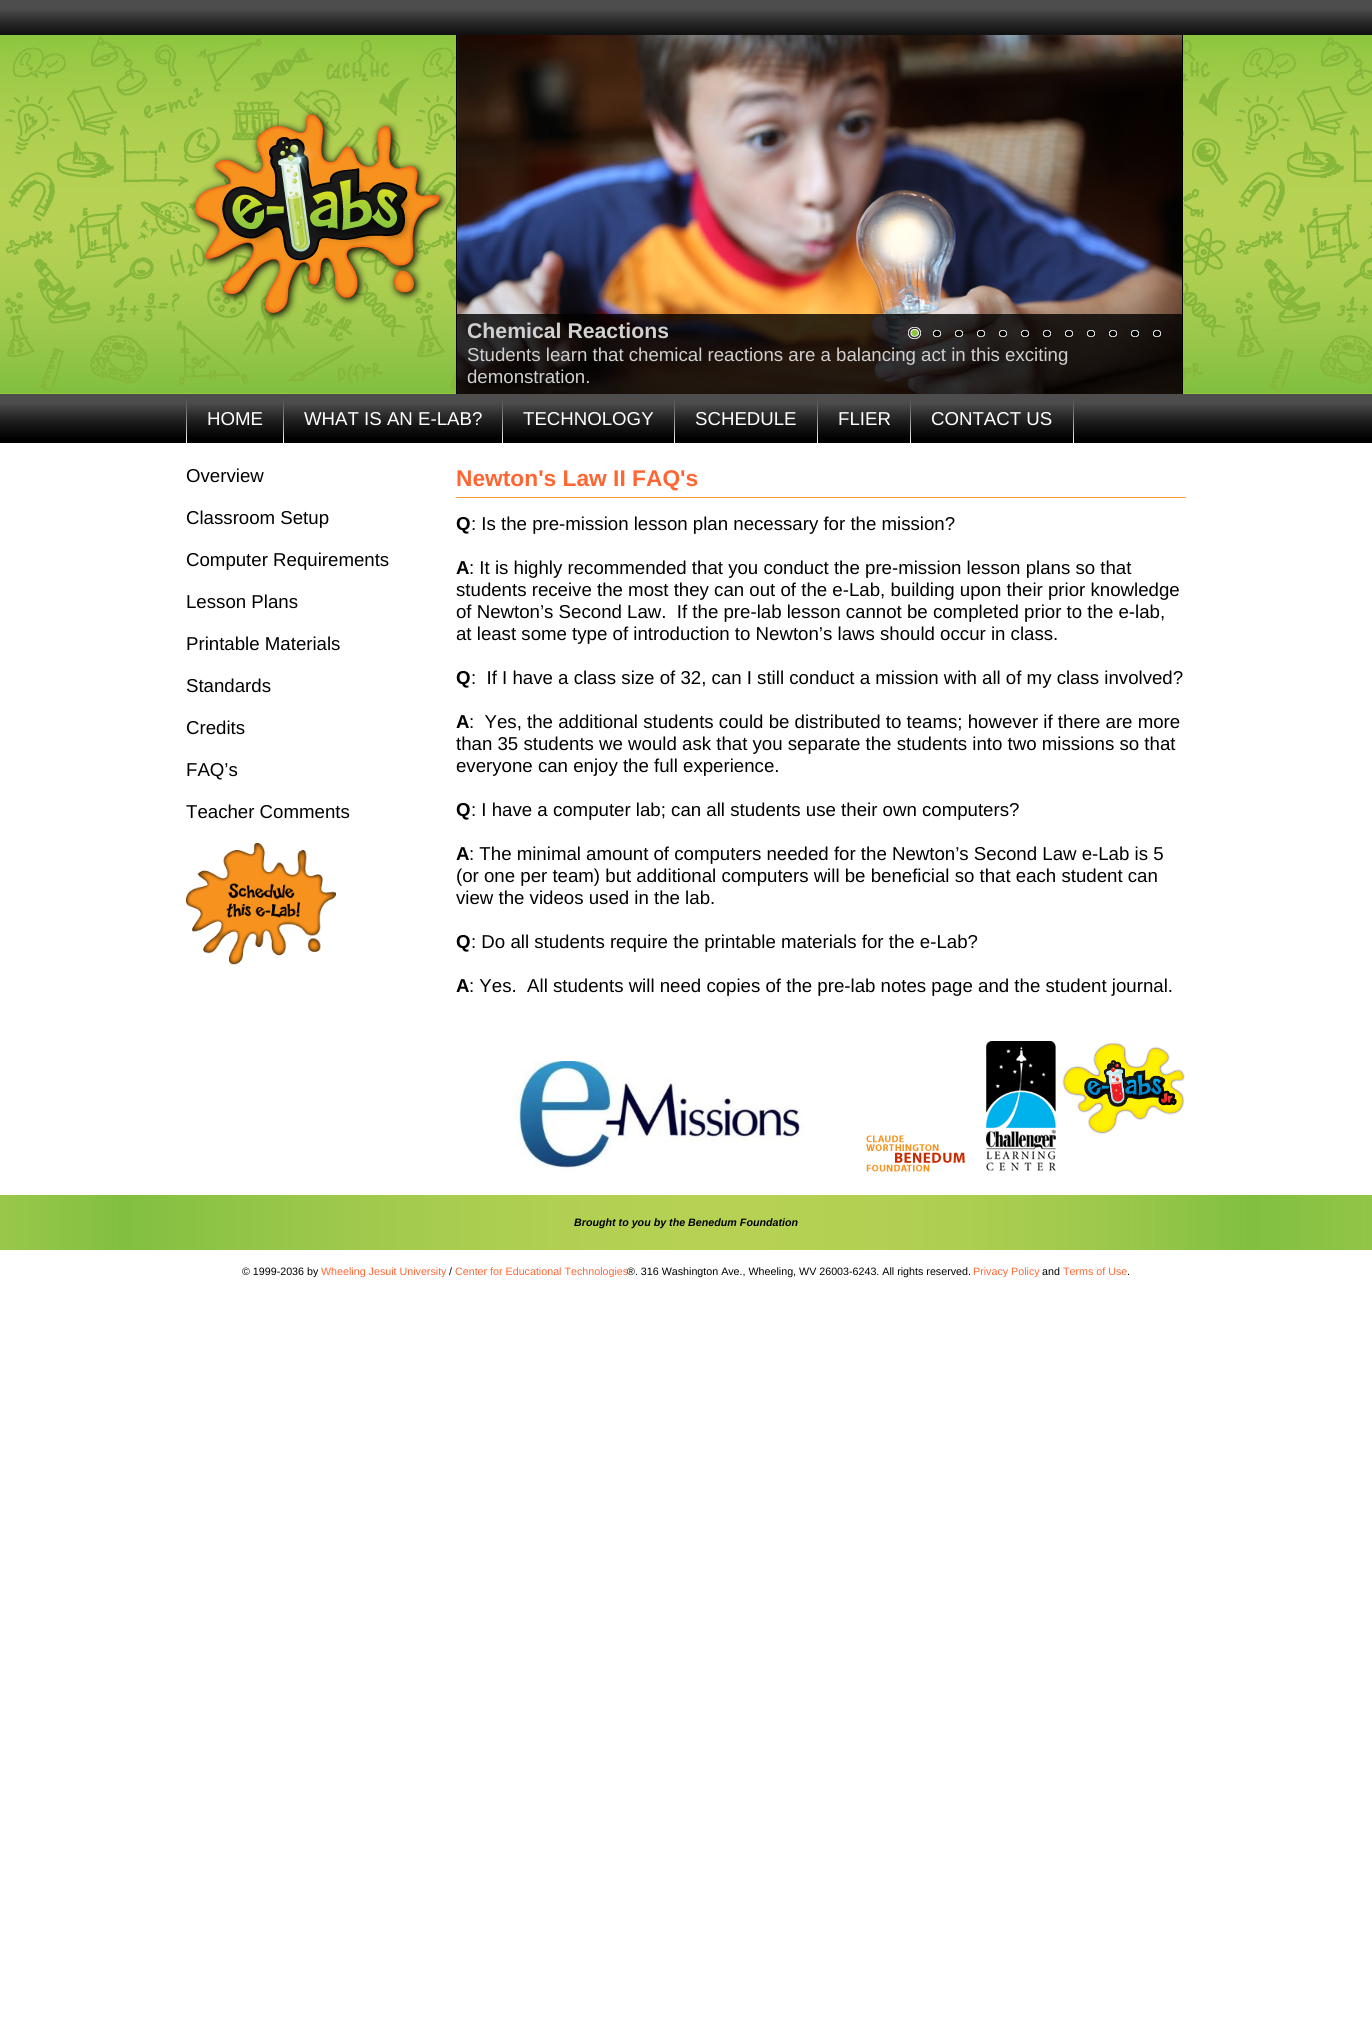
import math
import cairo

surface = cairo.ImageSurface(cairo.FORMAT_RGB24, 1372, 2024)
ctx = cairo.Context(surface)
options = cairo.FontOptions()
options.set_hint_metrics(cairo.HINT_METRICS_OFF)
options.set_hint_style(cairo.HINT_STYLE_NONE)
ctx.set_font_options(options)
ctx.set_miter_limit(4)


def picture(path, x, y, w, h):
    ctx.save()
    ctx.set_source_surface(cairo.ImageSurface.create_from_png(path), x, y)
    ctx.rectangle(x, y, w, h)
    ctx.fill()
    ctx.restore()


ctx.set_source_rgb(1, 1, 1)
ctx.paint()
picture("img1.png", 0, 0, 1372, 35)
ctx.set_source_rgb(0.6, 0.8, 0.2)
ctx.rectangle(0, 393, 1372, 1)
ctx.fill()
picture("img2.png", 0, 35, 1372, 358)
picture("img3.png", 190, 109, 258, 213)
ctx.set_source_rgb(0, 0, 0)
ctx.rectangle(1182, 35, 1, 359)
ctx.fill()
ctx.rectangle(456, 35, 1, 359)
ctx.fill()
picture("img4.png", 457, 35, 725, 359)
ctx.set_source_rgba(0, 0, 0, 0.8)
ctx.rectangle(457, 314, 725, 80)
ctx.fill()
ctx.select_font_face("Liberation Sans", cairo.FONT_SLANT_NORMAL, cairo.FONT_WEIGHT_BOLD)
ctx.set_font_size(21.25)
ctx.set_source_rgb(0.82, 0.816, 0.816)
ctx.move_to(467, 338)
ctx.show_text("Chemical Reactions")
ctx.select_font_face("Liberation Sans")
ctx.set_font_size(18.65)
ctx.move_to(467, 361)
ctx.show_text("Students learn that chemical reactions are a balancing act in this exciting")
ctx.move_to(467, 383)
ctx.show_text("demonstration.")
picture("img5.png", 908, 327, 13, 12)
picture("img6.png", 933, 330, 8, 7)
picture("img7.png", 955, 330, 8, 7)
picture("img8.png", 977, 330, 8, 7)
picture("img9.png", 999, 330, 8, 7)
picture("img10.png", 1021, 330, 8, 7)
picture("img11.png", 1043, 330, 8, 7)
picture("img12.png", 1065, 330, 8, 7)
picture("img13.png", 1087, 330, 8, 7)
picture("img14.png", 1109, 330, 8, 7)
picture("img15.png", 1131, 330, 8, 7)
picture("img16.png", 1153, 330, 8, 7)
ctx.set_source_rgb(0, 0, 0)
ctx.rectangle(0, 437, 1372, 6)
ctx.fill()
picture("img17.png", 0, 394, 1372, 43)
picture("img18.png", 186, 399, 1, 44)
ctx.set_source_rgb(1, 1, 1)
ctx.move_to(207, 425)
ctx.show_text("HOME")
picture("img18.png", 283, 399, 1, 44)
ctx.move_to(304, 425)
ctx.show_text("WHAT IS AN E-LAB?")
picture("img18.png", 502, 399, 1, 44)
ctx.move_to(523, 425)
ctx.show_text("TECHNOLOGY")
picture("img18.png", 674, 399, 1, 44)
ctx.move_to(695, 425)
ctx.show_text("SCHEDULE")
picture("img18.png", 817, 399, 1, 44)
ctx.move_to(838, 425)
ctx.show_text("FLIER")
picture("img18.png", 910, 399, 1, 44)
ctx.move_to(931, 425)
ctx.show_text("CONTACT US")
picture("img18.png", 1073, 399, 1, 44)
ctx.set_source_rgb(0, 0, 0)
ctx.move_to(186, 482)
ctx.show_text("Overview")
ctx.move_to(186, 524)
ctx.show_text("Classroom Setup")
ctx.move_to(186, 566)
ctx.show_text("Computer Requirements")
ctx.move_to(186, 608)
ctx.show_text("Lesson Plans")
ctx.move_to(186, 650)
ctx.show_text("Printable Materials")
ctx.move_to(186, 692)
ctx.show_text("Standards")
ctx.move_to(186, 734)
ctx.show_text("Credits")
ctx.move_to(186, 776)
ctx.show_text("FAQ’s")
ctx.move_to(186, 818)
ctx.show_text("Teacher Comments")
picture("img19.png", 186, 843, 150, 122)
ctx.set_source_rgb(1, 0.6, 0.2)
ctx.rectangle(456, 497, 730, 1)
ctx.fill()
ctx.select_font_face("Liberation Sans", cairo.FONT_SLANT_NORMAL, cairo.FONT_WEIGHT_BOLD)
ctx.set_font_size(22.75)
ctx.set_source_rgb(1, 0.4, 0.2)
ctx.move_to(456, 486)
ctx.show_text("Newton's Law II FAQ's")
ctx.set_font_size(18.65)
ctx.set_source_rgb(0, 0, 0)
ctx.move_to(456, 530)
ctx.show_text("Q")
ctx.select_font_face("Liberation Sans")
ctx.move_to(471, 530)
ctx.show_text(": Is the pre-mission lesson plan necessary for the mission?")
ctx.select_font_face("Liberation Sans", cairo.FONT_SLANT_NORMAL, cairo.FONT_WEIGHT_BOLD)
ctx.move_to(456, 574)
ctx.show_text("A")
ctx.select_font_face("Liberation Sans")
ctx.move_to(469, 574)
ctx.show_text(": It is highly recommended that you conduct the pre-mission lesson plans so that")
ctx.move_to(456, 596)
ctx.show_text("students receive the most they can out of the e-Lab, building upon their prior knowledge")
ctx.move_to(456, 618)
ctx.show_text("of Newton’s Second Law.  If the pre-lab lesson cannot be completed prior to the e-lab,")
ctx.move_to(456, 640)
ctx.show_text("at least some type of introduction to Newton’s laws should occur in class.")
ctx.select_font_face("Liberation Sans", cairo.FONT_SLANT_NORMAL, cairo.FONT_WEIGHT_BOLD)
ctx.move_to(456, 684)
ctx.show_text("Q")
ctx.select_font_face("Liberation Sans")
ctx.move_to(471, 684)
ctx.show_text(":  If I have a class size of 32, can I still conduct a mission with all of my class involved?")
ctx.select_font_face("Liberation Sans", cairo.FONT_SLANT_NORMAL, cairo.FONT_WEIGHT_BOLD)
ctx.move_to(456, 728)
ctx.show_text("A")
ctx.select_font_face("Liberation Sans")
ctx.move_to(469, 728)
ctx.show_text(":  Yes, the additional students could be distributed to teams; however if there are more")
ctx.move_to(456, 750)
ctx.show_text("than 35 students we would ask that you separate the students into two missions so that")
ctx.move_to(456, 772)
ctx.show_text("everyone can enjoy the full experience.")
ctx.select_font_face("Liberation Sans", cairo.FONT_SLANT_NORMAL, cairo.FONT_WEIGHT_BOLD)
ctx.move_to(456, 816)
ctx.show_text("Q")
ctx.select_font_face("Liberation Sans")
ctx.move_to(471, 816)
ctx.show_text(": I have a computer lab; can all students use their own computers?")
ctx.select_font_face("Liberation Sans", cairo.FONT_SLANT_NORMAL, cairo.FONT_WEIGHT_BOLD)
ctx.move_to(456, 860)
ctx.show_text("A")
ctx.select_font_face("Liberation Sans")
ctx.move_to(469, 860)
ctx.show_text(": The minimal amount of computers needed for the Newton’s Second Law e-Lab is 5")
ctx.move_to(456, 882)
ctx.show_text("(or one per team) but additional computers will be beneficial so that each student can")
ctx.move_to(456, 904)
ctx.show_text("view the videos used in the lab.")
ctx.select_font_face("Liberation Sans", cairo.FONT_SLANT_NORMAL, cairo.FONT_WEIGHT_BOLD)
ctx.move_to(456, 948)
ctx.show_text("Q")
ctx.select_font_face("Liberation Sans")
ctx.move_to(471, 948)
ctx.show_text(": Do all students require the printable materials for the e-Lab?")
ctx.select_font_face("Liberation Sans", cairo.FONT_SLANT_NORMAL, cairo.FONT_WEIGHT_BOLD)
ctx.move_to(456, 992)
ctx.show_text("A")
ctx.select_font_face("Liberation Sans")
ctx.move_to(469, 992)
ctx.show_text(": Yes.  All students will need copies of the pre-lab notes page and the student journal.")
picture("img20.png", 512, 1061, 293, 110)
picture("img21.png", 866, 1135, 99, 37)
picture("img22.png", 986, 1041, 71, 130)
picture("img23.png", 1062, 1042, 123, 92)
picture("img24.png", 0, 1195, 1372, 55)
ctx.select_font_face("Liberation Sans", cairo.FONT_SLANT_ITALIC, cairo.FONT_WEIGHT_BOLD)
ctx.set_font_size(10.7)
ctx.move_to(574, 1226)
ctx.show_text("Brought to you by the Benedum Foundation")
ctx.select_font_face("Liberation Sans")
ctx.move_to(242, 1275)
ctx.show_text("© 1999-2036 by")
ctx.set_source_rgb(1, 0.4, 0.2)
ctx.move_to(321, 1275)
ctx.show_text("Wheeling Jesuit University")
ctx.set_source_rgb(0, 0, 0)
ctx.move_to(449, 1275)
ctx.show_text("/")
ctx.set_source_rgb(1, 0.4, 0.2)
ctx.move_to(455, 1275)
ctx.show_text("Center for Educational Technologies")
ctx.set_source_rgb(0, 0, 0)
ctx.move_to(627, 1275)
ctx.show_text("®. 316 Washington Ave., Wheeling, WV 26003-6243. All rights reserved.")
ctx.set_source_rgb(1, 0.4, 0.2)
ctx.move_to(973, 1275)
ctx.show_text("Privacy Policy")
ctx.set_source_rgb(0, 0, 0)
ctx.move_to(1042, 1275)
ctx.show_text("and")
ctx.set_source_rgb(1, 0.4, 0.2)
ctx.move_to(1063, 1275)
ctx.show_text("Terms of Use")
ctx.set_source_rgb(0, 0, 0)
ctx.move_to(1127, 1275)
ctx.show_text(".")
surface.write_to_png("page.png")
